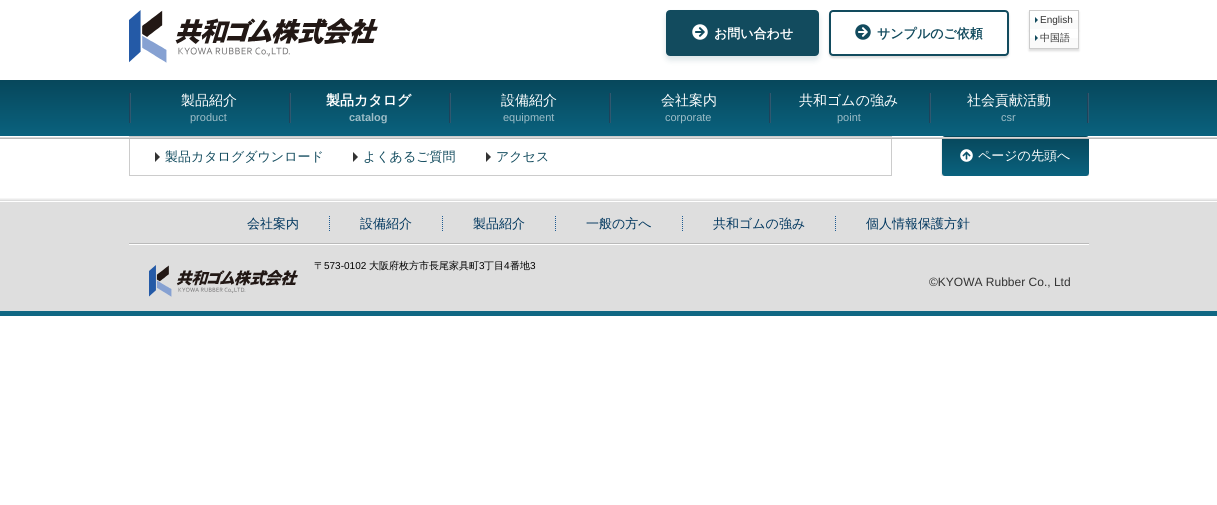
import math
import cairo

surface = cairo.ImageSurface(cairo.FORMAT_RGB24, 1217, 505)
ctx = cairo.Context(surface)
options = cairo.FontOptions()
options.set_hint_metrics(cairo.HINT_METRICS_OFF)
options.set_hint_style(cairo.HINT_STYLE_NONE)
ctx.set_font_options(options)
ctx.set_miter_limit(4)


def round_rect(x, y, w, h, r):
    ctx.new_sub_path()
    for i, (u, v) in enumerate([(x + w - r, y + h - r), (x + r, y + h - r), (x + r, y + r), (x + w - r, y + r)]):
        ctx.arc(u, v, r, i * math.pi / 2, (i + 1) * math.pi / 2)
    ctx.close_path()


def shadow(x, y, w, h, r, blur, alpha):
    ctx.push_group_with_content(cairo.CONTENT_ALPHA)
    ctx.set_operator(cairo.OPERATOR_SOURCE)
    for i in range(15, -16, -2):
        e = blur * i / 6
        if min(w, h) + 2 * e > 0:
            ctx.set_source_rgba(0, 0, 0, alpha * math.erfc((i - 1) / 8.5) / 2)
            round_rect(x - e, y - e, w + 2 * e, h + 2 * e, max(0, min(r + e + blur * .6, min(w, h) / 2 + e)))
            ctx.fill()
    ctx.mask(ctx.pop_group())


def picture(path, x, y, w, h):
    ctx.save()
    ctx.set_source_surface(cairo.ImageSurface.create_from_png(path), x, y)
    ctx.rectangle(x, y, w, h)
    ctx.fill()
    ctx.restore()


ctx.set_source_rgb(1, 1, 1)
ctx.paint()
picture("img1.png", 129, 10, 249, 53)
ctx.set_source_rgb(0.071, 0.294, 0.369)
shadow(666, 14, 153, 46, 4, 3, 0.15)
ctx.set_source_rgb(0.071, 0.294, 0.369)
round_rect(667, 11, 151, 44, 3)
ctx.fill_preserve()
ctx.stroke()
picture("img2.png", 692, 24, 16, 16)
ctx.select_font_face("WenQuanYi Zen Hei", cairo.FONT_SLANT_NORMAL, cairo.FONT_WEIGHT_BOLD)
ctx.set_font_size(13)
ctx.set_source_rgb(1, 1, 1)
ctx.move_to(714, 38)
ctx.show_text("お問い合わせ")
ctx.set_source_rgb(0.867, 0.867, 0.867)
shadow(829, 12, 180, 46, 4, 1, 1)
ctx.set_source_rgb(1, 1, 1)
round_rect(830, 11, 178, 44, 3)
ctx.fill_preserve()
ctx.set_source_rgb(0.071, 0.294, 0.369)
ctx.stroke()
picture("img3.png", 855, 24, 16, 16)
ctx.move_to(877, 38)
ctx.show_text("サンプルのご依頼")
ctx.save()
ctx.set_fill_rule(cairo.FILL_RULE_EVEN_ODD)
ctx.new_path()
ctx.move_to(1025, 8)
ctx.line_to(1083, 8)
ctx.line_to(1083, 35)
ctx.line_to(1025, 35)
ctx.close_path()
ctx.move_to(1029, 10)
ctx.line_to(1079, 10)
ctx.line_to(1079, 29)
ctx.line_to(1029, 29)
ctx.close_path()
ctx.clip()
ctx.set_source_rgb(0.867, 0.867, 0.867)
shadow(1029, 12, 50, 19, 0, 1, 1)
ctx.restore()
ctx.set_source_rgb(0.98, 0.98, 0.98)
ctx.rectangle(1030, 20, 48, 9)
ctx.fill()
ctx.set_source_rgb(0.8, 0.8, 0.8)
ctx.rectangle(1029, 10, 50, 1)
ctx.fill()
ctx.rectangle(1078, 10, 1, 19)
ctx.fill()
ctx.rectangle(1029, 10, 1, 19)
ctx.fill()
ctx.set_source_rgb(0.071, 0.294, 0.369)
ctx.new_path()
ctx.move_to(1035, 23)
ctx.line_to(1035, 17)
ctx.line_to(1038, 20)
ctx.close_path()
ctx.fill()
ctx.select_font_face("Liberation Sans")
ctx.set_font_size(10)
ctx.set_source_rgb(0.2, 0.2, 0.2)
ctx.move_to(1040, 23)
ctx.show_text("English")
ctx.set_source_rgb(0.867, 0.867, 0.867)
shadow(1029, 31, 50, 20, 0, 1, 1)
ctx.set_source_rgb(1, 1, 1)
ctx.rectangle(1030, 29, 48, 9)
ctx.fill()
ctx.set_source_rgb(0.98, 0.98, 0.98)
ctx.rectangle(1030, 38, 48, 10)
ctx.fill()
ctx.set_source_rgb(0.8, 0.8, 0.8)
ctx.rectangle(1078, 29, 1, 20)
ctx.fill()
ctx.rectangle(1029, 48, 50, 1)
ctx.fill()
ctx.rectangle(1029, 29, 1, 20)
ctx.fill()
ctx.set_source_rgb(0.071, 0.294, 0.369)
ctx.new_path()
ctx.move_to(1035, 41)
ctx.line_to(1035, 35)
ctx.line_to(1038, 38)
ctx.close_path()
ctx.fill()
ctx.select_font_face("WenQuanYi Zen Hei Medium")
ctx.set_source_rgb(0.2, 0.2, 0.2)
ctx.move_to(1040, 41)
ctx.show_text("中国語")
ctx.save()
ctx.rectangle(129, 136, 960, 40)
ctx.clip()
ctx.set_source_rgb(0.8, 0.8, 0.8)
shadow(942, 138, 147, 40, 3, 1, 1)
ctx.restore()
gradient = cairo.LinearGradient(609, 80, 609, 136)
gradient.add_color_stop_rgba(0, 0.027, 0.278, 0.357, 1)
gradient.add_color_stop_rgba(1, 0.039, 0.384, 0.494, 1)
ctx.set_source(gradient)
ctx.rectangle(0, 80, 1217, 56)
ctx.fill()
gradient = cairo.LinearGradient(129, 108, 131, 108)
gradient.add_color_stop_rgba(0, 0.082, 0.212, 0.314, 1)
gradient.add_color_stop_rgba(1, 0.227, 0.392, 0.475, 1)
ctx.set_source(gradient)
ctx.rectangle(129, 93, 2, 30)
ctx.fill()
ctx.set_font_size(14)
ctx.set_source_rgb(1, 1, 1)
ctx.move_to(181, 105)
ctx.show_text("製品紹介")
ctx.select_font_face("Liberation Sans")
ctx.set_font_size(11)
ctx.set_source_rgb(0.616, 0.741, 0.78)
ctx.move_to(190, 121)
ctx.show_text("product")
gradient = cairo.LinearGradient(289, 108, 291, 108)
gradient.add_color_stop_rgba(0, 0.082, 0.212, 0.314, 1)
gradient.add_color_stop_rgba(1, 0.227, 0.392, 0.475, 1)
ctx.set_source(gradient)
ctx.rectangle(289, 93, 2, 30)
ctx.fill()
ctx.select_font_face("WenQuanYi Zen Hei", cairo.FONT_SLANT_NORMAL, cairo.FONT_WEIGHT_BOLD)
ctx.set_font_size(14)
ctx.set_source_rgb(1, 1, 1)
ctx.move_to(326, 105)
ctx.show_text("製品カタログ")
ctx.select_font_face("Liberation Sans", cairo.FONT_SLANT_NORMAL, cairo.FONT_WEIGHT_BOLD)
ctx.set_font_size(11)
ctx.set_source_rgb(0.616, 0.741, 0.78)
ctx.move_to(349, 121)
ctx.show_text("catalog")
gradient = cairo.LinearGradient(449, 108, 451, 108)
gradient.add_color_stop_rgba(0, 0.082, 0.212, 0.314, 1)
gradient.add_color_stop_rgba(1, 0.227, 0.392, 0.475, 1)
ctx.set_source(gradient)
ctx.rectangle(449, 93, 2, 30)
ctx.fill()
ctx.select_font_face("WenQuanYi Zen Hei Medium")
ctx.set_font_size(14)
ctx.set_source_rgb(1, 1, 1)
ctx.move_to(501, 105)
ctx.show_text("設備紹介")
ctx.select_font_face("Liberation Sans")
ctx.set_font_size(11)
ctx.set_source_rgb(0.616, 0.741, 0.78)
ctx.move_to(503, 121)
ctx.show_text("equipment")
gradient = cairo.LinearGradient(609, 108, 611, 108)
gradient.add_color_stop_rgba(0, 0.082, 0.212, 0.314, 1)
gradient.add_color_stop_rgba(1, 0.227, 0.392, 0.475, 1)
ctx.set_source(gradient)
ctx.rectangle(609, 93, 2, 30)
ctx.fill()
ctx.select_font_face("WenQuanYi Zen Hei Medium")
ctx.set_font_size(14)
ctx.set_source_rgb(1, 1, 1)
ctx.move_to(661, 105)
ctx.show_text("会社案内")
ctx.select_font_face("Liberation Sans")
ctx.set_font_size(11)
ctx.set_source_rgb(0.616, 0.741, 0.78)
ctx.move_to(665, 121)
ctx.show_text("corporate")
gradient = cairo.LinearGradient(769, 108, 771, 108)
gradient.add_color_stop_rgba(0, 0.082, 0.212, 0.314, 1)
gradient.add_color_stop_rgba(1, 0.227, 0.392, 0.475, 1)
ctx.set_source(gradient)
ctx.rectangle(769, 93, 2, 30)
ctx.fill()
ctx.select_font_face("WenQuanYi Zen Hei Medium")
ctx.set_font_size(14)
ctx.set_source_rgb(1, 1, 1)
ctx.move_to(799, 105)
ctx.show_text("共和ゴムの強み")
ctx.select_font_face("Liberation Sans")
ctx.set_font_size(11)
ctx.set_source_rgb(0.616, 0.741, 0.78)
ctx.move_to(837, 121)
ctx.show_text("point")
gradient = cairo.LinearGradient(929, 108, 931, 108)
gradient.add_color_stop_rgba(0, 0.082, 0.212, 0.314, 1)
gradient.add_color_stop_rgba(1, 0.227, 0.392, 0.475, 1)
ctx.set_source(gradient)
ctx.rectangle(929, 93, 2, 30)
ctx.fill()
ctx.select_font_face("WenQuanYi Zen Hei Medium")
ctx.set_font_size(14)
ctx.set_source_rgb(1, 1, 1)
ctx.move_to(967, 105)
ctx.show_text("社会貢献活動")
ctx.select_font_face("Liberation Sans")
ctx.set_font_size(11)
ctx.set_source_rgb(0.616, 0.741, 0.78)
ctx.move_to(1001, 121)
ctx.show_text("csr")
gradient = cairo.LinearGradient(1087, 108, 1089, 108)
gradient.add_color_stop_rgba(0, 0.082, 0.212, 0.314, 1)
gradient.add_color_stop_rgba(1, 0.227, 0.392, 0.475, 1)
ctx.set_source(gradient)
ctx.rectangle(1087, 93, 2, 30)
ctx.fill()
ctx.rectangle(129.5, 136.5, 762, 39)
ctx.set_source_rgb(0.8, 0.8, 0.8)
ctx.set_line_width(1)
ctx.stroke()
gradient = cairo.LinearGradient(1016, 136, 1016, 176)
gradient.add_color_stop_rgba(0, 0.027, 0.278, 0.357, 1)
gradient.add_color_stop_rgba(1, 0.039, 0.384, 0.494, 1)
ctx.set_source(gradient)
round_rect(942, 136, 147, 40, 3)
ctx.fill()
gradient = cairo.LinearGradient(609, 137, 609, 139)
gradient.add_color_stop_rgba(0, 0.914, 0.914, 0.914, 1)
gradient.add_color_stop_rgba(1, 0.663, 0.663, 0.663, 1)
ctx.set_source(gradient)
ctx.rectangle(0, 137, 1217, 2)
ctx.fill()
picture("img4.png", 0, 198, 1217, 118)
ctx.set_source_rgb(0.2, 0.2, 0.2)
ctx.new_path()
ctx.move_to(155, 162)
ctx.line_to(155, 152)
ctx.line_to(160, 157)
ctx.close_path()
ctx.fill()
ctx.select_font_face("WenQuanYi Zen Hei Medium")
ctx.set_font_size(13)
ctx.set_source_rgb(0.071, 0.294, 0.369)
ctx.move_to(165, 161)
ctx.show_text("製品カタログダウンロード")
ctx.set_source_rgb(0.2, 0.2, 0.2)
ctx.new_path()
ctx.move_to(353, 162)
ctx.line_to(353, 152)
ctx.line_to(358, 157)
ctx.close_path()
ctx.fill()
ctx.set_source_rgb(0.071, 0.294, 0.369)
ctx.move_to(363, 161)
ctx.show_text("よくあるご質問")
ctx.set_source_rgb(0.2, 0.2, 0.2)
ctx.new_path()
ctx.move_to(486, 162)
ctx.line_to(486, 152)
ctx.line_to(491, 157)
ctx.close_path()
ctx.fill()
ctx.set_source_rgb(0.071, 0.294, 0.369)
ctx.move_to(496, 161)
ctx.show_text("アクセス")
picture("img5.png", 960, 149, 13, 13)
ctx.set_source_rgb(1, 1, 1)
ctx.move_to(978, 160)
ctx.show_text("ページの先頭へ")
picture("img6.png", 129, 243, 960, 2)
ctx.set_source_rgb(0, 0.212, 0.369)
ctx.move_to(247, 228)
ctx.show_text("会社案内")
ctx.new_path()
ctx.move_to(329.5, 216)
ctx.line_to(329.5, 232)
ctx.set_source_rgb(0.122, 0.361, 0.576)
ctx.set_dash([1, 1])
ctx.stroke()
ctx.set_source_rgb(0, 0.212, 0.369)
ctx.move_to(360, 228)
ctx.show_text("設備紹介")
ctx.new_path()
ctx.move_to(442.5, 216)
ctx.line_to(442.5, 232)
ctx.set_source_rgb(0.122, 0.361, 0.576)
ctx.stroke()
ctx.set_source_rgb(0, 0.212, 0.369)
ctx.move_to(473, 228)
ctx.show_text("製品紹介")
ctx.new_path()
ctx.move_to(555.5, 216)
ctx.line_to(555.5, 232)
ctx.set_source_rgb(0.122, 0.361, 0.576)
ctx.stroke()
ctx.set_source_rgb(0, 0.212, 0.369)
ctx.move_to(586, 228)
ctx.show_text("一般の方へ")
ctx.new_path()
ctx.move_to(682.5, 216)
ctx.line_to(682.5, 232)
ctx.set_source_rgb(0.122, 0.361, 0.576)
ctx.stroke()
ctx.set_source_rgb(0, 0.212, 0.369)
ctx.move_to(713, 228)
ctx.show_text("共和ゴムの強み")
ctx.new_path()
ctx.move_to(835.5, 216)
ctx.line_to(835.5, 232)
ctx.set_source_rgb(0.122, 0.361, 0.576)
ctx.stroke()
ctx.set_source_rgb(0, 0.212, 0.369)
ctx.move_to(866, 228)
ctx.show_text("個人情報保護方針")
picture("img7.png", 149, 265, 149, 32)
ctx.set_font_size(10)
ctx.set_source_rgb(0, 0, 0)
ctx.move_to(314, 269)
ctx.show_text("〒")
ctx.select_font_face("Liberation Sans")
ctx.move_to(324, 269)
ctx.show_text("573-0102")
ctx.select_font_face("WenQuanYi Zen Hei Medium")
ctx.move_to(369, 269)
ctx.show_text("大阪府枚方市長尾家具町")
ctx.select_font_face("Liberation Sans")
ctx.move_to(479, 269)
ctx.show_text("3")
ctx.select_font_face("WenQuanYi Zen Hei Medium")
ctx.move_to(484, 269)
ctx.show_text("丁目")
ctx.select_font_face("Liberation Sans")
ctx.move_to(504, 269)
ctx.show_text("4")
ctx.select_font_face("WenQuanYi Zen Hei Medium")
ctx.move_to(510, 269)
ctx.show_text("番地")
ctx.select_font_face("Liberation Sans")
ctx.move_to(530, 269)
ctx.show_text("3")
ctx.set_font_size(12)
ctx.set_source_rgb(0.2, 0.2, 0.2)
ctx.move_to(929, 286)
ctx.show_text("©KYOWA Rubber Co., Ltd")
surface.write_to_png("page.png")
